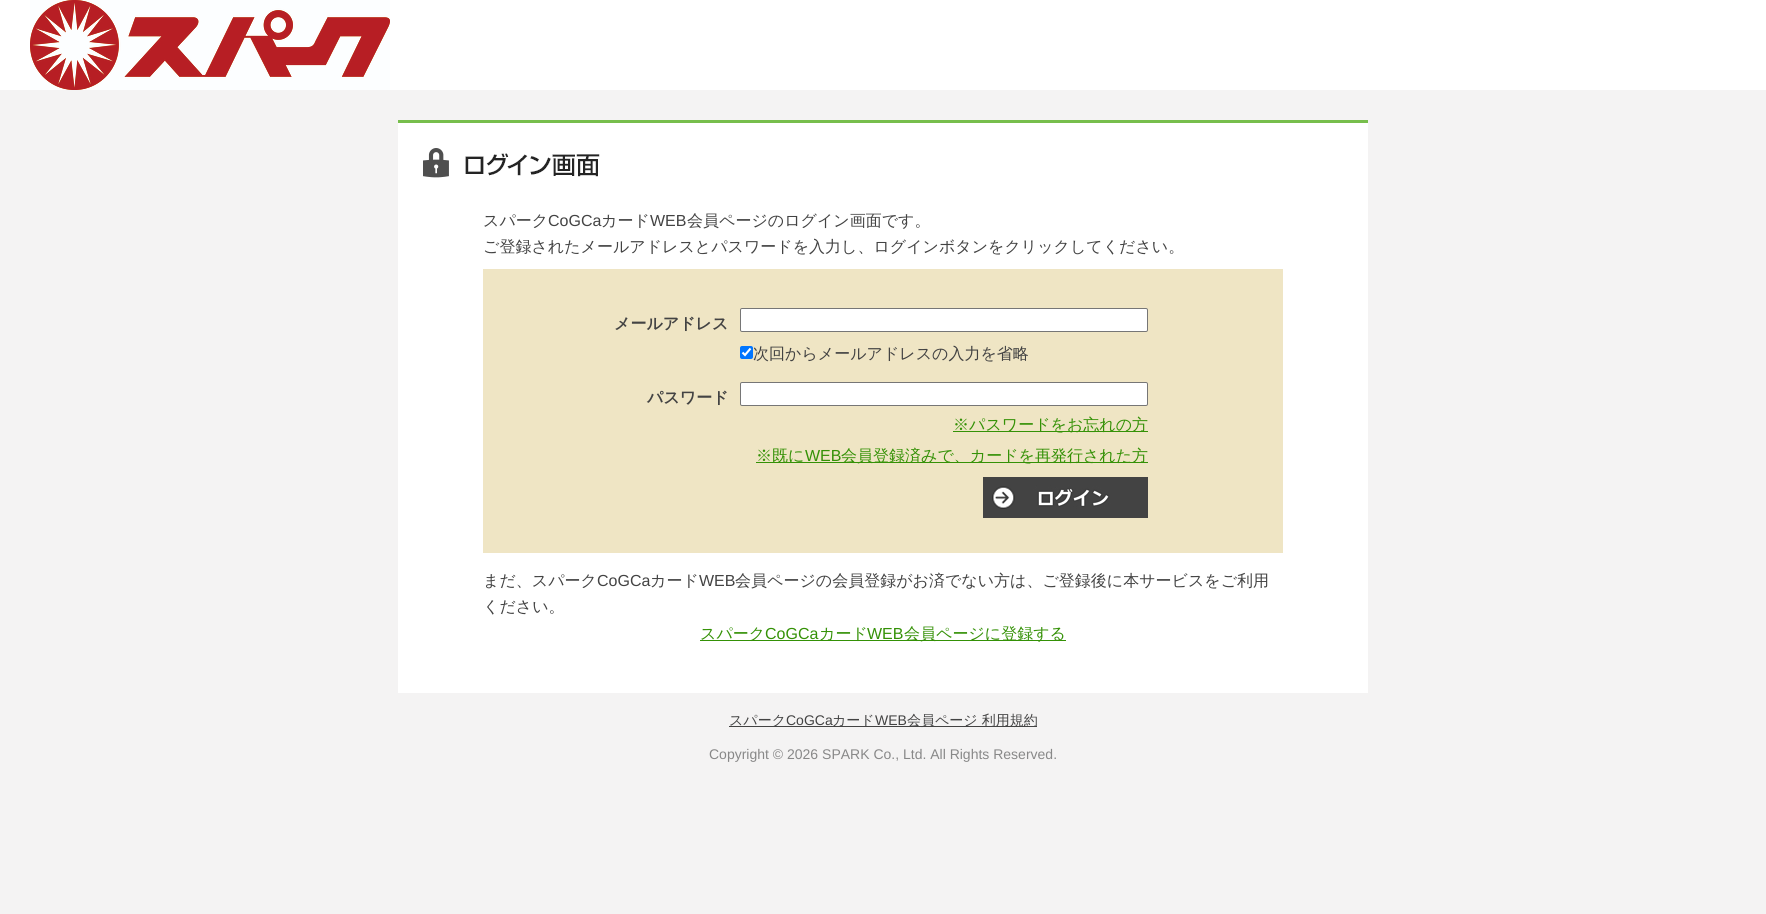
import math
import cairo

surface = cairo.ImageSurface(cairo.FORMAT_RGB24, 1766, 914)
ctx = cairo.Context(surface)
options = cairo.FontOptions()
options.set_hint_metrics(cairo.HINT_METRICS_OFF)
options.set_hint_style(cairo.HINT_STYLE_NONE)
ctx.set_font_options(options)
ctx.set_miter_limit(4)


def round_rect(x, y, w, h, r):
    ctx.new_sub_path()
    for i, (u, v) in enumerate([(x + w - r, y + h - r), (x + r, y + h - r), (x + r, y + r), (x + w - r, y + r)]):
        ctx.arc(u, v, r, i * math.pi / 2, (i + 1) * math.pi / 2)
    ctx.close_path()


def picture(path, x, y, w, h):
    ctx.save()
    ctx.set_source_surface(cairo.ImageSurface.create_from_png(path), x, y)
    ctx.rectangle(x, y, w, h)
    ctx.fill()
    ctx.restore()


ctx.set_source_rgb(0.957, 0.953, 0.953)
ctx.paint()
ctx.set_source_rgb(1, 1, 1)
ctx.rectangle(0, 0, 1766, 90)
ctx.fill()
picture("img1.png", 30, 0, 360, 90)
ctx.rectangle(398, 123, 970, 570)
ctx.fill()
ctx.set_source_rgb(0.467, 0.745, 0.298)
ctx.rectangle(398, 120, 970, 3)
ctx.fill()
picture("img2.png", 423, 148, 177, 30)
ctx.select_font_face("WenQuanYi Zen Hei Medium")
ctx.set_font_size(16)
ctx.set_source_rgb(0.263, 0.263, 0.263)
ctx.move_to(483, 226)
ctx.show_text("スパーク")
ctx.select_font_face("Liberation Sans")
ctx.move_to(548, 226)
ctx.show_text("CoGCa")
ctx.select_font_face("WenQuanYi Zen Hei Medium")
ctx.move_to(601, 226)
ctx.show_text("カード")
ctx.select_font_face("Liberation Sans")
ctx.move_to(650, 226)
ctx.show_text("WEB")
ctx.select_font_face("WenQuanYi Zen Hei Medium")
ctx.move_to(687, 226)
ctx.show_text("会員ページのログイン画面です。")
ctx.move_to(483, 252)
ctx.show_text("ご登録されたメールアドレスとパスワードを入力し、ログインボタンをクリックしてください。")
ctx.set_source_rgb(0.937, 0.898, 0.769)
ctx.rectangle(483, 269, 800, 284)
ctx.fill()
ctx.select_font_face("WenQuanYi Zen Hei", cairo.FONT_SLANT_NORMAL, cairo.FONT_WEIGHT_BOLD)
ctx.set_source_rgb(0.263, 0.263, 0.263)
ctx.move_to(614, 329)
ctx.show_text("メールアドレス")
ctx.set_source_rgb(1, 1, 1)
round_rect(740.5, 308.5, 407, 23, 1.5)
ctx.fill_preserve()
ctx.set_source_rgb(0.463, 0.463, 0.463)
ctx.set_line_width(1)
ctx.stroke()
ctx.set_source_rgb(0, 0.459, 1)
round_rect(740, 346, 13, 13, 2)
ctx.fill()
ctx.new_path()
ctx.move_to(742.5, 352.5)
ctx.line_to(745, 355)
ctx.line_to(750.5, 348.5)
ctx.set_source_rgb(1, 1, 1)
ctx.set_line_width(2.1)
ctx.stroke()
ctx.select_font_face("WenQuanYi Zen Hei Medium")
ctx.set_source_rgb(0.263, 0.263, 0.263)
ctx.move_to(753, 359)
ctx.show_text("次回からメールアドレスの入力を省略")
ctx.select_font_face("WenQuanYi Zen Hei", cairo.FONT_SLANT_NORMAL, cairo.FONT_WEIGHT_BOLD)
ctx.move_to(647, 403)
ctx.show_text("パスワード")
ctx.set_source_rgb(1, 1, 1)
round_rect(740.5, 382.5, 407, 23, 1.5)
ctx.fill_preserve()
ctx.set_source_rgb(0.463, 0.463, 0.463)
ctx.set_line_width(1)
ctx.stroke()
ctx.set_source_rgb(0.204, 0.569, 0.024)
ctx.rectangle(953, 431, 195, 1)
ctx.fill()
ctx.select_font_face("WenQuanYi Zen Hei Medium")
ctx.move_to(953, 430)
ctx.show_text("※パスワードをお忘れの方")
ctx.rectangle(756, 462, 392, 1)
ctx.fill()
ctx.move_to(756, 461)
ctx.show_text("※既に")
ctx.select_font_face("Liberation Sans")
ctx.move_to(805, 461)
ctx.show_text("WEB")
ctx.select_font_face("WenQuanYi Zen Hei Medium")
ctx.move_to(841, 461)
ctx.show_text("会員登録済みで、カードを再発行された方")
picture("img3.png", 983, 477, 165, 41)
ctx.set_source_rgb(0.263, 0.263, 0.263)
ctx.move_to(483, 586)
ctx.show_text("まだ、スパーク")
ctx.select_font_face("Liberation Sans")
ctx.move_to(597, 586)
ctx.show_text("CoGCa")
ctx.select_font_face("WenQuanYi Zen Hei Medium")
ctx.move_to(650, 586)
ctx.show_text("カード")
ctx.select_font_face("Liberation Sans")
ctx.move_to(699, 586)
ctx.show_text("WEB")
ctx.select_font_face("WenQuanYi Zen Hei Medium")
ctx.move_to(735, 586)
ctx.show_text("会員ページの会員登録がお済でない方は、ご登録後に本サービスをご利用")
ctx.move_to(483, 612)
ctx.show_text("ください。")
ctx.set_source_rgb(0.204, 0.569, 0.024)
ctx.rectangle(700, 640, 366, 1)
ctx.fill()
ctx.move_to(700, 639)
ctx.show_text("スパーク")
ctx.select_font_face("Liberation Sans")
ctx.move_to(765, 639)
ctx.show_text("CoGCa")
ctx.select_font_face("WenQuanYi Zen Hei Medium")
ctx.move_to(819, 639)
ctx.show_text("カード")
ctx.select_font_face("Liberation Sans")
ctx.move_to(867, 639)
ctx.show_text("WEB")
ctx.select_font_face("WenQuanYi Zen Hei Medium")
ctx.move_to(904, 639)
ctx.show_text("会員ページに登録する")
ctx.set_source_rgb(0.263, 0.263, 0.263)
ctx.rectangle(729, 726, 308, 1)
ctx.fill()
ctx.set_font_size(14)
ctx.move_to(729, 725)
ctx.show_text("スパーク")
ctx.select_font_face("Liberation Sans")
ctx.move_to(786, 725)
ctx.show_text("CoGCa")
ctx.select_font_face("WenQuanYi Zen Hei Medium")
ctx.move_to(832, 725)
ctx.show_text("カード")
ctx.select_font_face("Liberation Sans")
ctx.move_to(875, 725)
ctx.show_text("WEB")
ctx.select_font_face("WenQuanYi Zen Hei Medium")
ctx.move_to(907, 725)
ctx.show_text("会員ページ 利用規約")
ctx.select_font_face("Liberation Sans")
ctx.set_source_rgb(0.533, 0.533, 0.533)
ctx.move_to(709, 759)
ctx.show_text("Copyright © 2026 SPARK Co., Ltd. All Rights Reserved.")
surface.write_to_png("page.png")
